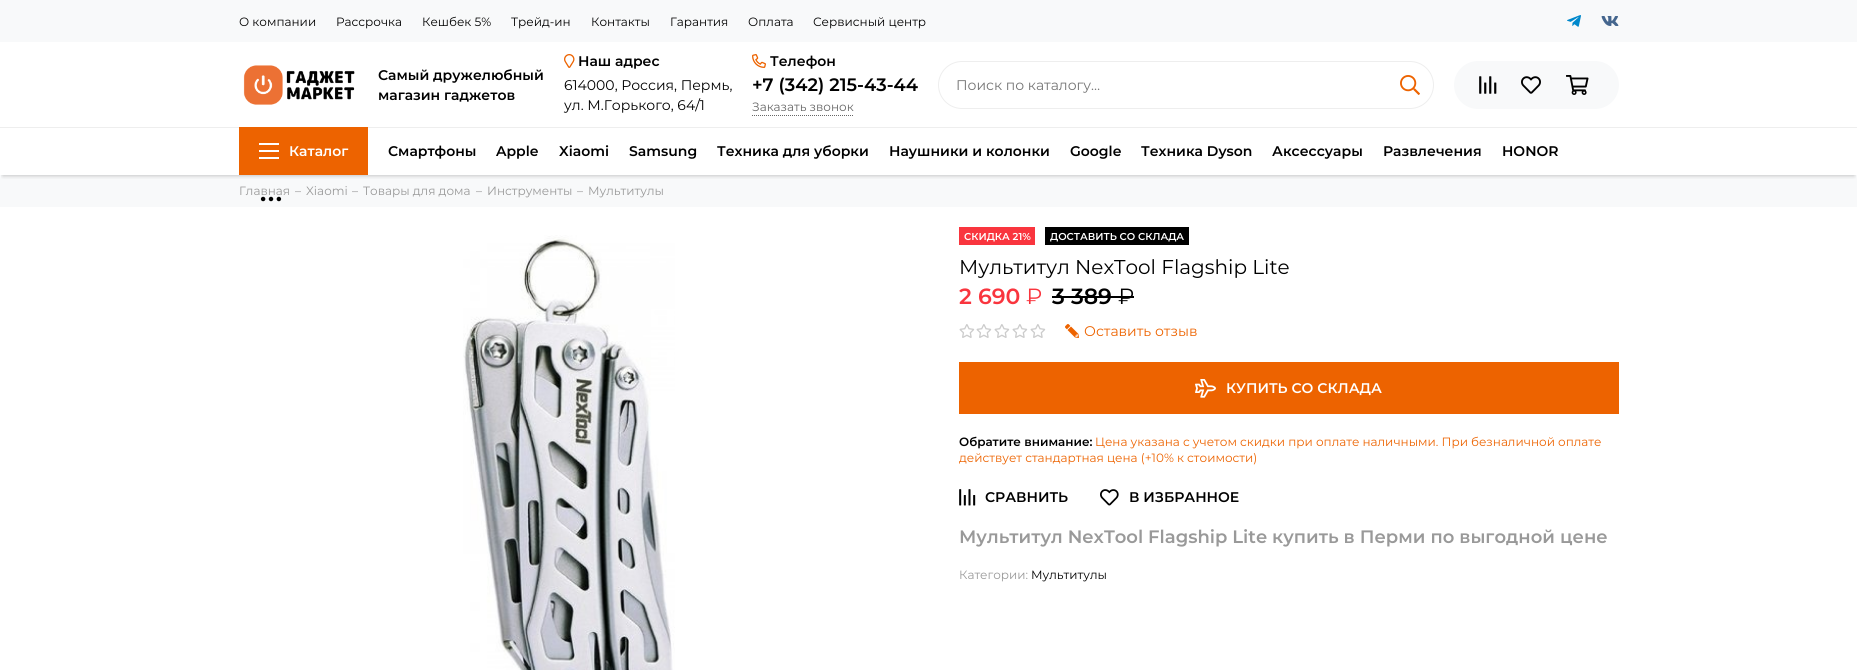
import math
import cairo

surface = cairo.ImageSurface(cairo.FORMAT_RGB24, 1857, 670)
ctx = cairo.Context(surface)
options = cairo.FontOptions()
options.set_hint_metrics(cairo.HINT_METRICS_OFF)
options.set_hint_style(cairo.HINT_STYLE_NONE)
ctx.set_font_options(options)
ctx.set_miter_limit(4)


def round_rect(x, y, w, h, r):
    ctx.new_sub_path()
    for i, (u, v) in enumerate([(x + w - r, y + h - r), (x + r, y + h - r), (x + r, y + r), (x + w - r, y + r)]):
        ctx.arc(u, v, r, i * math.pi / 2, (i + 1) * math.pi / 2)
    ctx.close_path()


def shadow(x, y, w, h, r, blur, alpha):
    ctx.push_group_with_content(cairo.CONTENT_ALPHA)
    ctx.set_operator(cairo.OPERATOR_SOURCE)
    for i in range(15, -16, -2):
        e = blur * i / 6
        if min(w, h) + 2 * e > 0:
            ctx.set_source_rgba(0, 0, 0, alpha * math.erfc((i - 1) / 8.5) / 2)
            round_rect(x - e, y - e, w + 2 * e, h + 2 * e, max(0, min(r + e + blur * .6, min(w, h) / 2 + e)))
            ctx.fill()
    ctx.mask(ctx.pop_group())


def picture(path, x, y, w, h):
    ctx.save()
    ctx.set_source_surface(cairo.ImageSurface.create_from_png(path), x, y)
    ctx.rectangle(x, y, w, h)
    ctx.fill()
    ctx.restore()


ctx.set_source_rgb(1, 1, 1)
ctx.paint()
ctx.set_source_rgb(0.969, 0.973, 0.98)
ctx.rectangle(0, 0, 1857, 42)
ctx.fill()
ctx.select_font_face("Montserrat")
ctx.set_font_size(12)
ctx.set_source_rgb(0, 0, 0)
ctx.move_to(239, 26)
ctx.show_text("О компании")
ctx.move_to(336, 26)
ctx.show_text("Рассрочка")
ctx.move_to(422, 26)
ctx.show_text("Кешбек 5%")
ctx.move_to(511, 26)
ctx.show_text("Трейд-ин")
ctx.move_to(591, 26)
ctx.show_text("Контакты")
ctx.move_to(670, 26)
ctx.show_text("Гарантия")
ctx.move_to(748, 26)
ctx.show_text("Оплата")
ctx.move_to(813, 26)
ctx.show_text("Сервисный центр")
picture("img1.png", 1567, 15, 14, 12)
picture("img2.png", 1601, 16, 18, 10)
picture("img3.png", 243, 65, 112, 40)
ctx.select_font_face("Montserrat SemiBold")
ctx.set_font_size(14)
ctx.move_to(378, 80)
ctx.show_text("Самый дружелюбный")
ctx.move_to(378, 100)
ctx.show_text("магазин гаджетов")
picture("img4.png", 564, 54, 11, 14)
ctx.move_to(578, 66)
ctx.show_text("Наш адрес")
ctx.select_font_face("Montserrat")
ctx.move_to(564, 90)
ctx.show_text("614000, Россия, Пермь,")
ctx.move_to(564, 110)
ctx.show_text("ул. М.Горького, 64/1")
picture("img5.png", 752, 54, 14, 14)
ctx.select_font_face("Montserrat SemiBold")
ctx.move_to(770, 66)
ctx.show_text("Телефон")
ctx.set_font_size(18)
ctx.move_to(752, 91)
ctx.show_text("+7 (342) 215-43-44")
ctx.new_path()
ctx.move_to(752, 115.5)
ctx.line_to(854, 115.5)
ctx.set_source_rgb(0.4, 0.4, 0.4)
ctx.set_line_width(1)
ctx.set_dash([1, 1])
ctx.stroke()
ctx.select_font_face("Montserrat")
ctx.set_font_size(12)
ctx.move_to(752, 111)
ctx.show_text("Заказать звонок")
round_rect(938.5, 61.5, 495, 47, 23.5)
ctx.set_source_rgb(0.933, 0.933, 0.933)
ctx.set_dash([])
ctx.stroke()
ctx.set_font_size(14)
ctx.set_source_rgb(0.459, 0.459, 0.459)
ctx.move_to(956, 90)
ctx.show_text("Поиск по каталогу…")
picture("img6.png", 1400, 75, 20, 20)
ctx.set_source_rgb(0.969, 0.973, 0.98)
round_rect(1454, 61, 165, 48, 24)
ctx.fill()
picture("img7.png", 1479, 76, 18, 18)
picture("img8.png", 1521, 76, 20, 18)
picture("img9.png", 1566, 75, 23, 20)
ctx.rectangle(0, 175, 1857, 32)
ctx.fill()
ctx.save()
ctx.rectangle(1, 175, 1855, 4)
ctx.clip()
ctx.set_source_rgb(0, 0, 0)
shadow(3, 133, 1851, 42, 0, 2.5, 0.3)
ctx.restore()
ctx.set_source_rgb(0.933, 0.933, 0.933)
ctx.rectangle(0, 127, 1857, 1)
ctx.fill()
ctx.set_source_rgb(0.929, 0.388, 0)
ctx.rectangle(239, 127, 129, 48)
ctx.fill()
ctx.set_source_rgb(1, 1, 1)
ctx.rectangle(259, 143, 20, 2)
ctx.fill()
ctx.rectangle(259, 150, 20, 2)
ctx.fill()
ctx.rectangle(259, 157, 20, 2)
ctx.fill()
ctx.select_font_face("Montserrat SemiBold")
ctx.move_to(289, 156)
ctx.show_text("Каталог")
ctx.set_source_rgb(0, 0, 0)
ctx.move_to(388, 156)
ctx.show_text("Смартфоны")
ctx.move_to(496, 156)
ctx.show_text("Apple")
ctx.move_to(559, 156)
ctx.show_text("Xiaomi")
ctx.move_to(629, 156)
ctx.show_text("Samsung")
ctx.move_to(717, 156)
ctx.show_text("Техника для уборки")
ctx.move_to(889, 156)
ctx.show_text("Наушники и колонки")
ctx.move_to(1070, 156)
ctx.show_text("Google")
ctx.move_to(1141, 156)
ctx.show_text("Техника Dyson")
ctx.move_to(1272, 156)
ctx.show_text("Аксессуары")
ctx.move_to(1383, 156)
ctx.show_text("Развлечения")
ctx.move_to(1502, 156)
ctx.show_text("HONOR")
picture("img10.png", 260, 196, 22, 6)
ctx.select_font_face("Montserrat")
ctx.set_font_size(12)
ctx.set_source_rgb(0.6, 0.6, 0.6)
ctx.move_to(239, 195)
ctx.show_text("Главная")
ctx.move_to(295, 195)
ctx.show_text("–")
ctx.move_to(306, 195)
ctx.show_text("Xiaomi")
ctx.move_to(352, 195)
ctx.show_text("–")
ctx.move_to(363, 195)
ctx.show_text("Товары для дома")
ctx.move_to(476, 195)
ctx.show_text("–")
ctx.move_to(487, 195)
ctx.show_text("Инструменты")
ctx.move_to(577, 195)
ctx.show_text("–")
ctx.move_to(588, 195)
ctx.show_text("Мультитулы")
picture("img11.png", 463, 235, 212, 435)
ctx.set_source_rgb(0.973, 0.208, 0.243)
ctx.rectangle(959, 227, 76, 18)
ctx.fill()
ctx.select_font_face("Montserrat SemiBold")
ctx.set_font_size(10)
ctx.set_source_rgb(1, 1, 1)
ctx.move_to(964, 240)
ctx.show_text("СКИДКА 21%")
ctx.set_source_rgb(0, 0, 0)
ctx.rectangle(1045, 227, 144, 18)
ctx.fill()
ctx.set_source_rgb(1, 1, 1)
ctx.move_to(1050, 240)
ctx.show_text("ДОСТАВИТЬ СО СКЛАДА")
ctx.select_font_face("Montserrat")
ctx.set_font_size(20)
ctx.set_source_rgb(0, 0, 0)
ctx.move_to(959, 274)
ctx.show_text("Мультитул NexTool Flagship Lite")
ctx.select_font_face("Montserrat SemiBold")
ctx.set_font_size(22)
ctx.set_source_rgb(0.973, 0.208, 0.243)
ctx.move_to(959, 304)
ctx.show_text("2 690")
ctx.select_font_face("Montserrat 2")
ctx.move_to(1026, 304)
ctx.show_text("₽")
ctx.select_font_face("Montserrat SemiBold")
ctx.set_source_rgb(0, 0, 0)
ctx.move_to(1052, 304)
ctx.show_text("3 389")
ctx.rectangle(1052, 296, 82, 2)
ctx.fill()
ctx.select_font_face("Montserrat 2")
ctx.move_to(1118, 304)
ctx.show_text("₽")
picture("img12.png", 959, 324, 16, 14)
picture("img12.png", 976, 324, 16, 14)
picture("img12.png", 994, 324, 16, 14)
picture("img12.png", 1012, 324, 16, 14)
picture("img12.png", 1030, 324, 16, 14)
picture("img13.png", 1065, 324, 14, 14)
ctx.select_font_face("Montserrat")
ctx.set_font_size(14)
ctx.set_source_rgb(0.929, 0.388, 0)
ctx.move_to(1084, 336)
ctx.show_text("Оставить отзыв")
ctx.rectangle(959, 362, 660, 52)
ctx.fill()
picture("img14.png", 1195, 379, 21, 19)
ctx.select_font_face("Montserrat SemiBold")
ctx.set_source_rgb(1, 1, 1)
ctx.move_to(1226, 393)
ctx.show_text("КУПИТЬ СО СКЛАДА")
ctx.set_font_size(12)
ctx.set_source_rgb(0, 0, 0)
ctx.move_to(959, 446)
ctx.show_text("Обратите внимание:")
ctx.select_font_face("Montserrat")
ctx.set_source_rgb(0.929, 0.388, 0)
ctx.move_to(1095, 446)
ctx.show_text("Цена указана с учетом скидки при оплате наличными. При безналичной оплате")
ctx.move_to(959, 462)
ctx.show_text("действует стандартная цена (+10% к стоимости)")
picture("img15.png", 959, 489, 17, 17)
ctx.select_font_face("Montserrat SemiBold")
ctx.set_font_size(14)
ctx.set_source_rgb(0, 0, 0)
ctx.move_to(985, 502)
ctx.show_text("СРАВНИТЬ")
picture("img16.png", 1100, 489, 19, 17)
ctx.move_to(1129, 502)
ctx.show_text("В ИЗБРАННОЕ")
ctx.set_font_size(18)
ctx.set_source_rgb(0.6, 0.6, 0.6)
ctx.move_to(959, 543)
ctx.show_text("Мультитул NexTool Flagship Lite купить в Перми по выгодной цене")
ctx.select_font_face("Montserrat")
ctx.set_font_size(12)
ctx.move_to(959, 579)
ctx.show_text("Категории:")
ctx.set_source_rgb(0, 0, 0)
ctx.move_to(1031, 579)
ctx.show_text("Мультитулы")
surface.write_to_png("page.png")
